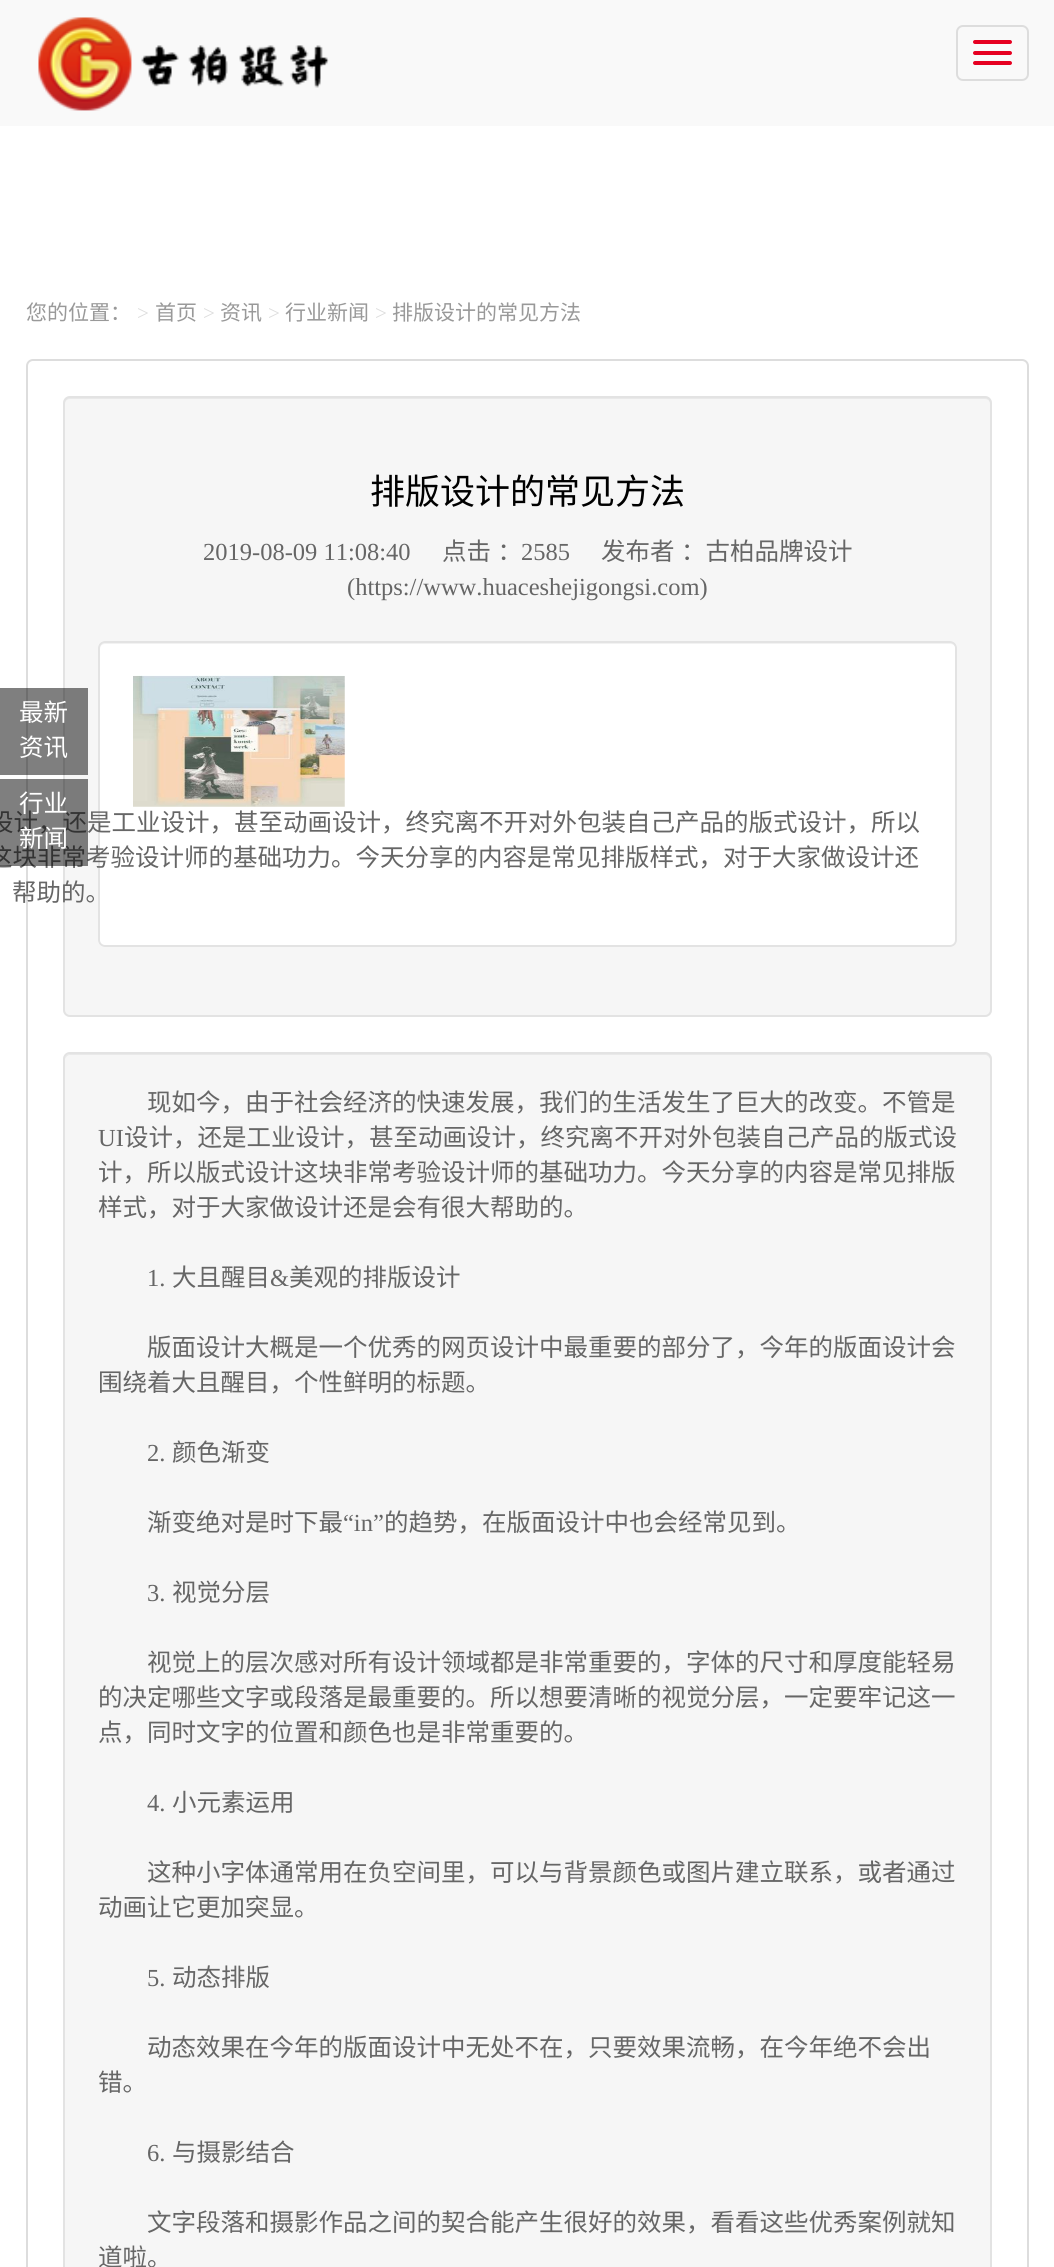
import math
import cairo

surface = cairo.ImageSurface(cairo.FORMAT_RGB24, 1054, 2267)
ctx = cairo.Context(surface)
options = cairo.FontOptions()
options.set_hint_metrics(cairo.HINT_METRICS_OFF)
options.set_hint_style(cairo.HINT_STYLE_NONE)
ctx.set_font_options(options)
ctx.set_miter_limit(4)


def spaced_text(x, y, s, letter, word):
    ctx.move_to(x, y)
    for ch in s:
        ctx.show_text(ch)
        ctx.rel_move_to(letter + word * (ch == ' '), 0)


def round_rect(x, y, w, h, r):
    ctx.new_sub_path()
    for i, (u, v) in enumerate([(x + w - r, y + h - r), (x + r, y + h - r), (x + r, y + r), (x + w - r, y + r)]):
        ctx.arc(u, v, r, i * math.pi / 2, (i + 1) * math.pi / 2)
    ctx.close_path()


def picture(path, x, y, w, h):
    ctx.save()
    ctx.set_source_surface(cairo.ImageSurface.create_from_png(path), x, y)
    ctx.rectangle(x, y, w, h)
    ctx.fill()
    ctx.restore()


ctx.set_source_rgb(1, 1, 1)
ctx.paint()
ctx.set_source_rgb(0.973, 0.973, 0.973)
ctx.rectangle(0, 0, 1054, 126)
ctx.fill()
picture("img1.png", 38, 17, 291, 94)
round_rect(957, 26, 71, 54, 6)
ctx.set_source_rgb(0.867, 0.867, 0.867)
ctx.stroke()
ctx.set_source_rgb(0.902, 0, 0.129)
round_rect(973, 40, 39, 4, 2)
ctx.fill()
round_rect(973, 51, 39, 4, 2)
ctx.fill()
round_rect(973, 61, 39, 4, 2)
ctx.fill()
ctx.select_font_face("Noto Sans CJK SC")
ctx.set_font_size(21)
ctx.set_source_rgb(0.6, 0.6, 0.6)
ctx.move_to(26, 320)
ctx.show_text("您的位置：")
ctx.select_font_face("Liberation Serif")
ctx.set_source_rgb(0.867, 0.867, 0.867)
ctx.move_to(137, 320)
ctx.show_text(">")
ctx.select_font_face("Noto Sans CJK SC")
ctx.set_source_rgb(0.6, 0.6, 0.6)
ctx.move_to(155, 320)
ctx.show_text("首页")
ctx.select_font_face("Liberation Serif")
ctx.set_source_rgb(0.867, 0.867, 0.867)
ctx.move_to(203, 320)
ctx.show_text(">")
ctx.select_font_face("Noto Sans CJK SC")
ctx.set_source_rgb(0.6, 0.6, 0.6)
ctx.move_to(220, 320)
ctx.show_text("资讯")
ctx.select_font_face("Liberation Serif")
ctx.set_source_rgb(0.867, 0.867, 0.867)
ctx.move_to(268, 320)
ctx.show_text(">")
ctx.select_font_face("Noto Sans CJK SC")
ctx.set_source_rgb(0.6, 0.6, 0.6)
ctx.move_to(285, 320)
ctx.show_text("行业新闻")
ctx.select_font_face("Liberation Serif")
ctx.set_source_rgb(0.867, 0.867, 0.867)
ctx.move_to(375, 320)
ctx.show_text(">")
ctx.select_font_face("Noto Sans CJK SC")
ctx.set_source_rgb(0.6, 0.6, 0.6)
ctx.move_to(392, 320)
ctx.show_text("排版设计的常见方法")
round_rect(27, 360, 1001, 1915, 6)
ctx.set_source_rgb(0.867, 0.867, 0.867)
ctx.stroke()
ctx.set_source_rgb(0.961, 0.961, 0.961)
round_rect(63, 396, 929, 621, 7)
ctx.fill()
ctx.set_source_rgb(0.914, 0.914, 0.914)
ctx.new_path()
ctx.move_to(70, 399)
ctx.line_to(985, 399)
ctx.curve_to(988, 399, 990, 401, 990, 404)
ctx.line_to(990, 1013)
ctx.curve_to(991, 1012, 991, 1011, 991, 1010)
ctx.line_to(991, 402)
ctx.curve_to(991, 399, 989, 397, 986, 397)
ctx.line_to(70, 397)
ctx.curve_to(67, 397, 65, 399, 65, 402)
ctx.line_to(65, 404)
ctx.curve_to(65, 401, 67, 399, 70, 399)
ctx.close_path()
ctx.fill()
round_rect(64, 397, 927, 619, 6)
ctx.set_source_rgb(0.89, 0.89, 0.89)
ctx.stroke()
ctx.set_font_size(35)
ctx.set_source_rgb(0, 0, 0)
ctx.move_to(370, 504)
ctx.show_text("排版设计的常见方法")
ctx.select_font_face("Liberation Serif")
ctx.set_font_size(24.5)
ctx.set_source_rgb(0.4, 0.4, 0.4)
ctx.move_to(203, 560)
ctx.show_text("2019-08-09 11:08:40")
ctx.select_font_face("Noto Sans CJK SC")
spaced_text(442, 560, "点击 ：", 0, 1)
ctx.select_font_face("Liberation Serif")
ctx.move_to(521, 560)
ctx.show_text("2585")
ctx.select_font_face("Noto Sans CJK SC")
spaced_text(601, 560, "发布者 ：古柏品牌设计", 0, 1)
ctx.select_font_face("Liberation Serif")
ctx.move_to(347, 595)
ctx.show_text("(https://www.huaceshejigongsi.com)")
ctx.set_source_rgb(1, 1, 1)
round_rect(98, 641, 859, 306, 7)
ctx.fill()
ctx.set_source_rgb(0.949, 0.949, 0.949)
ctx.new_path()
ctx.move_to(105, 644)
ctx.line_to(950, 644)
ctx.curve_to(953, 644, 956, 646, 956, 649)
ctx.line_to(956, 647)
ctx.curve_to(956, 644, 954, 642, 951, 642)
ctx.line_to(105, 642)
ctx.curve_to(102, 642, 100, 644, 100, 647)
ctx.line_to(100, 649)
ctx.curve_to(100, 646, 102, 644, 105, 644)
ctx.close_path()
ctx.fill()
round_rect(99, 642, 857, 304, 6)
ctx.set_source_rgb(0.89, 0.89, 0.89)
ctx.stroke()
picture("img2.png", 133, 675, 212, 132)
ctx.select_font_face("Noto Sans CJK SC")
ctx.set_source_rgb(0.4, 0.4, 0.4)
ctx.move_to(-11, 831)
ctx.show_text("设计，还是工业设计，甚至动画设计，终究离不开对外包装自己产品的版式设计，所以")
ctx.move_to(-12, 866)
ctx.show_text("这块非常考验设计师的基础功力。今天分享的内容是常见排版样式，对于大家做设计还")
ctx.move_to(12, 901)
ctx.show_text("帮助的。")
ctx.set_source_rgb(0.961, 0.961, 0.961)
round_rect(63, 1052, 929, 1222, 7)
ctx.fill()
ctx.set_source_rgb(0.914, 0.914, 0.914)
ctx.new_path()
ctx.move_to(70, 1055)
ctx.line_to(985, 1055)
ctx.curve_to(988, 1055, 990, 1058, 990, 1060)
ctx.line_to(990, 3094)
ctx.line_to(989, 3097)
ctx.curve_to(990, 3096, 991, 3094, 991, 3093)
ctx.line_to(991, 1059)
ctx.curve_to(991, 1056, 989, 1054, 986, 1054)
ctx.line_to(70, 1054)
ctx.curve_to(67, 1054, 65, 1056, 65, 1059)
ctx.line_to(65, 1060)
ctx.curve_to(65, 1058, 67, 1055, 70, 1055)
ctx.close_path()
ctx.fill()
round_rect(64, 1053, 927, 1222, 6)
ctx.set_source_rgb(0.89, 0.89, 0.89)
ctx.stroke()
ctx.set_source_rgb(0.4, 0.4, 0.4)
ctx.move_to(147, 1111)
ctx.show_text("现如今，由于社会经济的快速发展，我们的生活发生了巨大的改变。不管是")
ctx.select_font_face("Liberation Serif")
ctx.move_to(98, 1146)
ctx.show_text("UI")
ctx.select_font_face("Noto Sans CJK SC")
ctx.move_to(124, 1146)
ctx.show_text("设计，还是工业设计，甚至动画设计，终究离不开对外包装自己产品的版式设")
ctx.move_to(98, 1181)
ctx.show_text("计，所以版式设计这块非常考验设计师的基础功力。今天分享的内容是常见排版")
ctx.move_to(98, 1216)
ctx.show_text("样式，对于大家做设计还是会有很大帮助的。")
ctx.select_font_face("Liberation Serif")
ctx.move_to(147, 1286)
ctx.show_text("1.")
ctx.select_font_face("Noto Sans CJK SC")
ctx.move_to(172, 1286)
ctx.show_text("大且醒目")
ctx.select_font_face("Liberation Serif")
ctx.move_to(270, 1286)
ctx.show_text("&")
ctx.select_font_face("Noto Sans CJK SC")
ctx.move_to(289, 1286)
ctx.show_text("美观的排版设计")
ctx.move_to(147, 1356)
ctx.show_text("版面设计大概是一个优秀的网页设计中最重要的部分了，今年的版面设计会")
ctx.move_to(98, 1391)
ctx.show_text("围绕着大且醒目，个性鲜明的标题。")
ctx.select_font_face("Liberation Serif")
ctx.move_to(147, 1461)
ctx.show_text("2.")
ctx.select_font_face("Noto Sans CJK SC")
ctx.move_to(172, 1461)
ctx.show_text("颜色渐变")
ctx.move_to(147, 1531)
ctx.show_text("渐变绝对是时下最")
ctx.select_font_face("Liberation Serif")
ctx.move_to(343, 1531)
ctx.show_text("“in”")
ctx.select_font_face("Noto Sans CJK SC")
ctx.move_to(384, 1531)
ctx.show_text("的趋势，在版面设计中也会经常见到。")
ctx.select_font_face("Liberation Serif")
ctx.move_to(147, 1601)
ctx.show_text("3.")
ctx.select_font_face("Noto Sans CJK SC")
ctx.move_to(172, 1601)
ctx.show_text("视觉分层")
ctx.move_to(147, 1671)
ctx.show_text("视觉上的层次感对所有设计领域都是非常重要的，字体的尺寸和厚度能轻易")
ctx.move_to(98, 1706)
ctx.show_text("的决定哪些文字或段落是最重要的。所以想要清晰的视觉分层，一定要牢记这一")
ctx.move_to(98, 1741)
ctx.show_text("点，同时文字的位置和颜色也是非常重要的。")
ctx.select_font_face("Liberation Serif")
ctx.move_to(147, 1811)
ctx.show_text("4.")
ctx.select_font_face("Noto Sans CJK SC")
ctx.move_to(172, 1811)
ctx.show_text("小元素运用")
ctx.move_to(147, 1881)
ctx.show_text("这种小字体通常用在负空间里，可以与背景颜色或图片建立联系，或者通过")
ctx.move_to(98, 1916)
ctx.show_text("动画让它更加突显。")
ctx.select_font_face("Liberation Serif")
ctx.move_to(147, 1986)
ctx.show_text("5.")
ctx.select_font_face("Noto Sans CJK SC")
ctx.move_to(172, 1986)
ctx.show_text("动态排版")
ctx.move_to(147, 2056)
ctx.show_text("动态效果在今年的版面设计中无处不在，只要效果流畅，在今年绝不会出")
ctx.move_to(98, 2091)
ctx.show_text("错。")
ctx.select_font_face("Liberation Serif")
ctx.move_to(147, 2161)
ctx.show_text("6.")
ctx.select_font_face("Noto Sans CJK SC")
ctx.move_to(172, 2161)
ctx.show_text("与摄影结合")
ctx.move_to(147, 2231)
ctx.show_text("文字段落和摄影作品之间的契合能产生很好的效果，看看这些优秀案例就知")
ctx.move_to(98, 2266)
ctx.show_text("道啦。")
ctx.set_source_rgba(0, 0, 0, 0.5)
ctx.rectangle(0, 688, 88, 87)
ctx.fill()
ctx.set_source_rgb(1, 1, 1)
ctx.move_to(19, 721)
ctx.show_text("最新")
ctx.move_to(19, 756)
ctx.show_text("资讯")
ctx.set_source_rgba(0, 0, 0, 0.5)
ctx.rectangle(0, 779, 88, 87)
ctx.fill()
ctx.set_source_rgb(1, 1, 1)
ctx.move_to(19, 812)
ctx.show_text("行业")
ctx.move_to(19, 847)
ctx.show_text("新闻")
surface.write_to_png("page.png")
